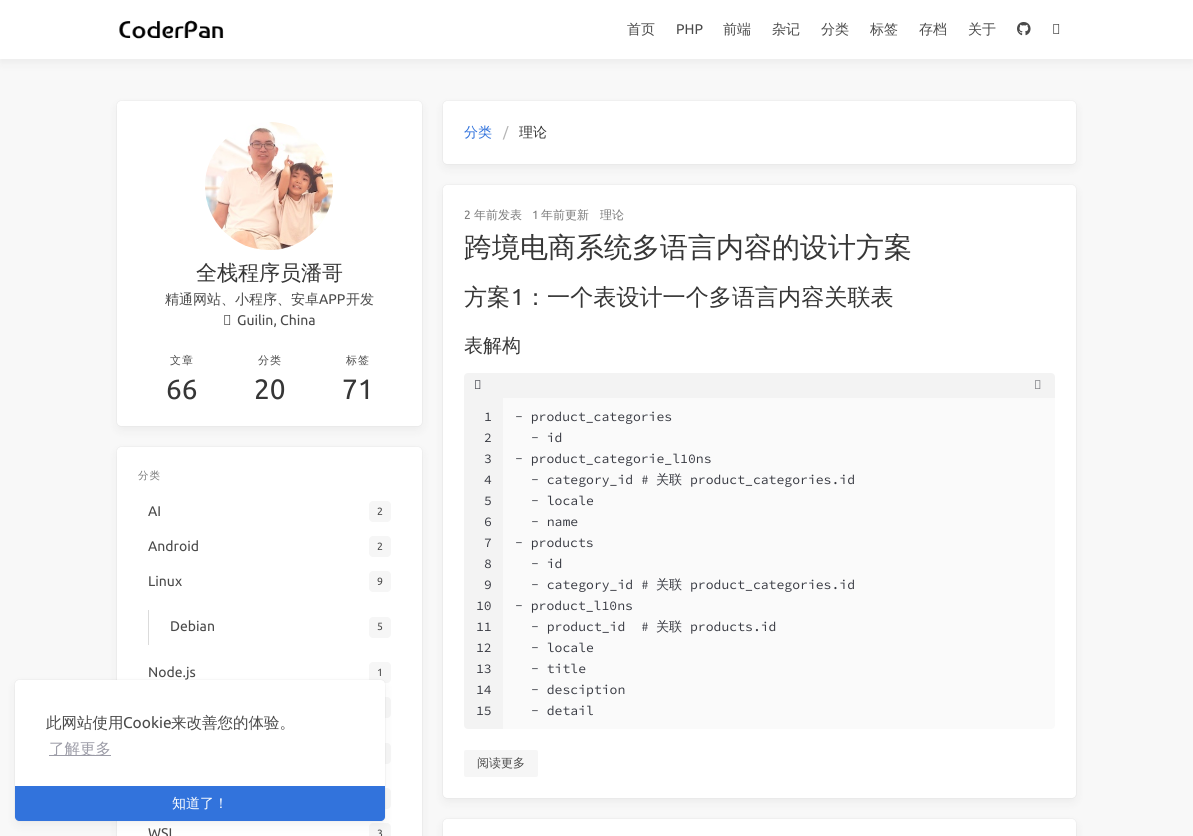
import math
import cairo

surface = cairo.ImageSurface(cairo.FORMAT_RGB24, 1193, 836)
ctx = cairo.Context(surface)
options = cairo.FontOptions()
options.set_hint_metrics(cairo.HINT_METRICS_OFF)
options.set_hint_style(cairo.HINT_STYLE_NONE)
ctx.set_font_options(options)
ctx.set_miter_limit(4)


def spaced_text(x, y, s, letter, word):
    ctx.move_to(x, y)
    for ch in s:
        ctx.show_text(ch)
        ctx.rel_move_to(letter + word * (ch == ' '), 0)


def round_rect(x, y, w, h, r):
    ctx.new_sub_path()
    for i, (u, v) in enumerate([(x + w - r, y + h - r), (x + r, y + h - r), (x + r, y + r), (x + w - r, y + r)]):
        ctx.arc(u, v, r, i * math.pi / 2, (i + 1) * math.pi / 2)
    ctx.close_path()


def shadow(x, y, w, h, r, blur, alpha):
    ctx.push_group_with_content(cairo.CONTENT_ALPHA)
    ctx.set_operator(cairo.OPERATOR_SOURCE)
    for i in range(15, -16, -2):
        e = blur * i / 6
        if min(w, h) + 2 * e > 0:
            ctx.set_source_rgba(0, 0, 0, alpha * math.erfc((i - 1) / 8.5) / 2)
            round_rect(x - e, y - e, w + 2 * e, h + 2 * e, max(0, min(r + e + blur * .6, min(w, h) / 2 + e)))
            ctx.fill()
    ctx.mask(ctx.pop_group())


def picture(path, x, y, w, h):
    ctx.save()
    ctx.set_source_surface(cairo.ImageSurface.create_from_png(path), x, y)
    ctx.rectangle(x, y, w, h)
    ctx.fill()
    ctx.restore()


ctx.set_source_rgb(0.969, 0.969, 0.969)
ctx.paint()
ctx.set_source_rgb(0, 0, 0)
shadow(0, 4, 1193, 59, 0, 5, 0.05)
ctx.set_source_rgb(1, 1, 1)
ctx.rectangle(0, 0, 1193, 59)
ctx.fill()
picture("img1.png", 119, 20, 105, 19)
ctx.select_font_face("WenQuanYi Zen Hei Medium")
ctx.set_font_size(14)
ctx.set_source_rgb(0.29, 0.29, 0.29)
ctx.move_to(627, 34)
ctx.show_text("首页")
ctx.select_font_face("Ubuntu")
ctx.move_to(676, 34)
ctx.show_text("PHP")
ctx.select_font_face("WenQuanYi Zen Hei Medium")
ctx.move_to(723, 34)
ctx.show_text("前端")
ctx.move_to(772, 34)
ctx.show_text("杂记")
ctx.move_to(821, 34)
ctx.show_text("分类")
ctx.move_to(870, 34)
ctx.show_text("标签")
ctx.move_to(919, 34)
ctx.show_text("存档")
ctx.move_to(968, 34)
ctx.show_text("关于")
picture("img2.png", 1017, 22, 14, 14)
picture("img3.png", 1053, 24, 7, 10)
ctx.set_source_rgb(0, 0, 0)
shadow(117, 101, 305, 325, 4, 0.5, 0.1)
shadow(117, 105, 305, 325, 4, 5, 0.05)
ctx.set_source_rgb(1, 1, 1)
round_rect(117, 101, 305, 325, 4)
ctx.fill()
picture("img4.png", 205, 122, 128, 128)
ctx.set_font_size(21)
ctx.set_source_rgb(0.212, 0.212, 0.212)
ctx.move_to(196, 280)
ctx.show_text("全栈程序员潘哥")
ctx.set_font_size(14)
ctx.set_source_rgb(0.29, 0.29, 0.29)
ctx.move_to(165, 304)
ctx.show_text("精通网站、小程序、安卓")
ctx.select_font_face("Ubuntu")
ctx.move_to(319, 304)
ctx.show_text("APP")
ctx.select_font_face("WenQuanYi Zen Hei Medium")
ctx.move_to(346, 304)
ctx.show_text("开发")
picture("img3.png", 224, 315, 7, 10)
ctx.select_font_face("Ubuntu")
ctx.move_to(237, 325)
ctx.show_text("Guilin, China")
ctx.select_font_face("WenQuanYi Zen Hei Medium")
ctx.set_font_size(11)
spaced_text(170, 364, "文章", 1, 0)
ctx.select_font_face("Ubuntu")
ctx.set_font_size(28)
ctx.set_source_rgb(0.212, 0.212, 0.212)
ctx.move_to(166, 399)
ctx.show_text("66")
ctx.select_font_face("WenQuanYi Zen Hei Medium")
ctx.set_font_size(11)
ctx.set_source_rgb(0.29, 0.29, 0.29)
spaced_text(258, 364, "分类", 1, 0)
ctx.select_font_face("Ubuntu")
ctx.set_font_size(28)
ctx.set_source_rgb(0.212, 0.212, 0.212)
ctx.move_to(254, 399)
ctx.show_text("20")
ctx.select_font_face("WenQuanYi Zen Hei Medium")
ctx.set_font_size(11)
ctx.set_source_rgb(0.29, 0.29, 0.29)
spaced_text(346, 364, "标签", 1, 0)
ctx.select_font_face("Ubuntu")
ctx.set_font_size(28)
ctx.set_source_rgb(0.212, 0.212, 0.212)
ctx.move_to(342, 399)
ctx.show_text("71")
ctx.set_source_rgb(0, 0, 0)
shadow(117, 447, 305, 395, 4, 0.5, 0.1)
shadow(117, 451, 305, 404, 4, 5, 0.05)
ctx.set_source_rgb(1, 1, 1)
round_rect(117, 447, 305, 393, 4)
ctx.fill()
ctx.select_font_face("WenQuanYi Zen Hei Medium")
ctx.set_font_size(10.5)
ctx.set_source_rgb(0.478, 0.478, 0.478)
spaced_text(138, 479, "分类", 1, 0)
ctx.select_font_face("Ubuntu")
ctx.set_font_size(14)
ctx.set_source_rgb(0.29, 0.29, 0.29)
ctx.move_to(148, 516)
ctx.show_text("AI")
ctx.set_source_rgb(0.961, 0.961, 0.961)
round_rect(369, 501, 22, 21, 4)
ctx.fill()
ctx.set_font_size(10.5)
ctx.set_source_rgb(0.29, 0.29, 0.29)
ctx.move_to(377, 515)
ctx.show_text("2")
ctx.set_font_size(14)
ctx.move_to(148, 551)
ctx.show_text("Android")
ctx.set_source_rgb(0.961, 0.961, 0.961)
round_rect(369, 536, 22, 21, 4)
ctx.fill()
ctx.set_font_size(10.5)
ctx.set_source_rgb(0.29, 0.29, 0.29)
ctx.move_to(377, 550)
ctx.show_text("2")
ctx.set_font_size(14)
ctx.move_to(148, 586)
ctx.show_text("Linux")
ctx.set_source_rgb(0.961, 0.961, 0.961)
round_rect(369, 571, 22, 21, 4)
ctx.fill()
ctx.set_font_size(10.5)
ctx.set_source_rgb(0.29, 0.29, 0.29)
ctx.move_to(377, 585)
ctx.show_text("9")
ctx.set_source_rgb(0.859, 0.859, 0.859)
ctx.rectangle(148, 610, 1, 35)
ctx.fill()
ctx.set_font_size(14)
ctx.set_source_rgb(0.29, 0.29, 0.29)
ctx.move_to(170, 631)
ctx.show_text("Debian")
ctx.set_source_rgb(0.961, 0.961, 0.961)
round_rect(369, 617, 22, 21, 4)
ctx.fill()
ctx.set_font_size(10.5)
ctx.set_source_rgb(0.29, 0.29, 0.29)
ctx.move_to(377, 630)
ctx.show_text("5")
ctx.set_font_size(14)
ctx.move_to(148, 677)
ctx.show_text("Node.js")
ctx.set_source_rgb(0.961, 0.961, 0.961)
round_rect(369, 662, 22, 21, 4)
ctx.fill()
ctx.set_font_size(10.5)
ctx.set_source_rgb(0.29, 0.29, 0.29)
ctx.move_to(377, 676)
ctx.show_text("1")
ctx.set_source_rgb(0.961, 0.961, 0.961)
round_rect(363, 697, 28, 21, 4)
ctx.fill()
round_rect(369, 743, 22, 21, 4)
ctx.fill()
round_rect(369, 788, 22, 21, 4)
ctx.fill()
ctx.set_font_size(14)
ctx.set_source_rgb(0.29, 0.29, 0.29)
ctx.move_to(148, 838)
ctx.show_text("WSL")
ctx.set_source_rgb(0.961, 0.961, 0.961)
round_rect(369, 823, 22, 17, 4)
ctx.fill()
ctx.set_font_size(10.5)
ctx.set_source_rgb(0.29, 0.29, 0.29)
ctx.move_to(377, 837)
ctx.show_text("3")
ctx.set_source_rgb(0, 0, 0)
shadow(443, 101, 633, 63, 4, 0.5, 0.1)
shadow(443, 105, 633, 63, 4, 5, 0.05)
ctx.set_source_rgb(1, 1, 1)
round_rect(443, 101, 633, 63, 4)
ctx.fill()
ctx.select_font_face("WenQuanYi Zen Hei Medium")
ctx.set_font_size(14)
ctx.set_source_rgb(0.196, 0.451, 0.863)
ctx.move_to(464, 137)
ctx.show_text("分类")
ctx.select_font_face("Ubuntu")
ctx.set_source_rgb(0.71, 0.71, 0.71)
ctx.move_to(503, 137)
ctx.show_text("/")
ctx.select_font_face("WenQuanYi Zen Hei Medium")
ctx.set_source_rgb(0.212, 0.212, 0.212)
ctx.move_to(519, 137)
ctx.show_text("理论")
ctx.set_source_rgb(0, 0, 0)
shadow(443, 185, 633, 613, 4, 0.5, 0.1)
shadow(443, 189, 633, 613, 4, 5, 0.05)
ctx.set_source_rgb(1, 1, 1)
round_rect(443, 185, 633, 613, 4)
ctx.fill()
ctx.select_font_face("Ubuntu")
ctx.set_font_size(12)
ctx.set_source_rgb(0.478, 0.478, 0.478)
ctx.move_to(464, 219)
ctx.show_text("2")
ctx.select_font_face("WenQuanYi Zen Hei Medium")
ctx.move_to(474, 219)
ctx.show_text("年前发表")
ctx.select_font_face("Ubuntu")
ctx.move_to(532, 219)
ctx.show_text("1")
ctx.select_font_face("WenQuanYi Zen Hei Medium")
ctx.move_to(541, 219)
ctx.show_text("年前更新")
ctx.move_to(600, 219)
ctx.show_text("理论")
ctx.set_font_size(28)
ctx.set_source_rgb(0.212, 0.212, 0.212)
ctx.move_to(464, 257)
ctx.show_text("跨境电商系统多语言内容的设计方案")
ctx.set_font_size(23.1)
ctx.move_to(464, 305)
ctx.show_text("方案")
ctx.select_font_face("Ubuntu")
ctx.move_to(511, 305)
ctx.show_text("1")
ctx.select_font_face("WenQuanYi Zen Hei Medium")
ctx.move_to(524, 305)
ctx.show_text("：一个表设计一个多语言内容关联表")
ctx.set_font_size(19)
ctx.move_to(464, 352)
ctx.show_text("表解构")
ctx.set_source_rgb(0.98, 0.98, 0.98)
round_rect(464, 373, 591, 356, 4)
ctx.fill()
ctx.set_source_rgb(0.953, 0.953, 0.953)
ctx.new_path()
ctx.move_to(468, 373)
ctx.line_to(1051, 373)
ctx.curve_to(1053, 373, 1055, 375, 1055, 377)
ctx.line_to(1055, 398)
ctx.line_to(464, 398)
ctx.line_to(464, 377)
ctx.curve_to(464, 375, 466, 373, 468, 373)
ctx.close_path()
ctx.fill()
picture("img5.png", 475, 380, 6, 9)
picture("img6.png", 1035, 380, 6, 9)
ctx.new_path()
ctx.move_to(464, 398)
ctx.line_to(503, 398)
ctx.line_to(503, 729)
ctx.line_to(468, 729)
ctx.curve_to(466, 729, 464, 727, 464, 725)
ctx.close_path()
ctx.fill()
ctx.select_font_face("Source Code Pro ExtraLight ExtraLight")
ctx.set_font_size(13.1)
ctx.set_source_rgb(0.22, 0.227, 0.259)
ctx.move_to(484, 421)
ctx.show_text("1")
ctx.move_to(484, 442)
ctx.show_text("2")
ctx.move_to(484, 463)
ctx.show_text("3")
ctx.move_to(484, 484)
ctx.show_text("4")
ctx.move_to(484, 505)
ctx.show_text("5")
ctx.move_to(484, 526)
ctx.show_text("6")
ctx.move_to(484, 547)
ctx.show_text("7")
ctx.move_to(484, 568)
ctx.show_text("8")
ctx.move_to(484, 589)
ctx.show_text("9")
ctx.move_to(476, 610)
ctx.show_text("10")
ctx.move_to(476, 631)
ctx.show_text("11")
ctx.move_to(476, 652)
ctx.show_text("12")
ctx.move_to(476, 673)
ctx.show_text("13")
ctx.move_to(476, 694)
ctx.show_text("14")
ctx.move_to(476, 715)
ctx.show_text("15")
ctx.move_to(515, 421)
ctx.show_text("- product_categories")
ctx.move_to(531, 442)
ctx.show_text("- id")
ctx.move_to(515, 463)
ctx.show_text("- product_categorie_l10ns")
ctx.move_to(531, 484)
ctx.show_text("- category_id #")
ctx.select_font_face("WenQuanYi Zen Hei Medium")
ctx.move_to(656, 484)
ctx.show_text("关联")
ctx.select_font_face("Source Code Pro ExtraLight ExtraLight")
ctx.move_to(690, 484)
ctx.show_text("product_categories.id")
ctx.move_to(531, 505)
ctx.show_text("- locale")
ctx.move_to(531, 526)
ctx.show_text("- name")
ctx.move_to(515, 547)
ctx.show_text("- products")
ctx.move_to(531, 568)
ctx.show_text("- id")
ctx.move_to(531, 589)
ctx.show_text("- category_id #")
ctx.select_font_face("WenQuanYi Zen Hei Medium")
ctx.move_to(656, 589)
ctx.show_text("关联")
ctx.select_font_face("Source Code Pro ExtraLight ExtraLight")
ctx.move_to(690, 589)
ctx.show_text("product_categories.id")
ctx.move_to(515, 610)
ctx.show_text("- product_l10ns")
ctx.move_to(531, 631)
ctx.show_text("- product_id  #")
ctx.select_font_face("WenQuanYi Zen Hei Medium")
ctx.move_to(656, 631)
ctx.show_text("关联")
ctx.select_font_face("Source Code Pro ExtraLight ExtraLight")
ctx.move_to(690, 631)
ctx.show_text("products.id")
ctx.move_to(531, 652)
ctx.show_text("- locale")
ctx.move_to(531, 673)
ctx.show_text("- title")
ctx.move_to(531, 694)
ctx.show_text("- desciption")
ctx.move_to(531, 715)
ctx.show_text("- detail")
ctx.set_source_rgb(0.961, 0.961, 0.961)
round_rect(464, 750, 74, 27, 2)
ctx.fill()
ctx.select_font_face("WenQuanYi Zen Hei Medium")
ctx.set_font_size(12)
ctx.set_source_rgb(0.29, 0.29, 0.29)
ctx.move_to(477, 767)
ctx.show_text("阅读更多")
ctx.set_source_rgb(0, 0, 0)
shadow(443, 819, 633, 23, 4, 0.5, 0.1)
shadow(443, 823, 633, 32, 4, 5, 0.05)
ctx.set_source_rgb(1, 1, 1)
round_rect(443, 819, 633, 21, 4)
ctx.fill()
ctx.set_source_rgb(0, 0, 0)
shadow(15, 680, 370, 141, 4, 0.5, 0.1)
shadow(15, 684, 370, 141, 4, 5, 0.05)
ctx.set_source_rgb(1, 1, 1)
round_rect(15, 680, 370, 141, 4)
ctx.fill()
ctx.set_font_size(15.5)
ctx.set_source_rgb(0.29, 0.29, 0.29)
ctx.move_to(46, 728)
ctx.show_text("此网站使用")
ctx.select_font_face("Ubuntu")
ctx.move_to(123, 728)
ctx.show_text("Cookie")
ctx.select_font_face("WenQuanYi Zen Hei Medium")
ctx.move_to(171, 728)
ctx.show_text("来改善您的体验。")
ctx.set_source_rgb(0.612, 0.612, 0.655)
ctx.rectangle(49, 755, 62, 1)
ctx.fill()
ctx.move_to(49, 754)
ctx.show_text("了解更多")
ctx.set_source_rgb(0.196, 0.451, 0.863)
ctx.new_path()
ctx.move_to(15, 786)
ctx.line_to(385, 786)
ctx.line_to(385, 817)
ctx.curve_to(385, 819, 383, 821, 381, 821)
ctx.line_to(19, 821)
ctx.curve_to(17, 821, 15, 819, 15, 817)
ctx.close_path()
ctx.fill()
ctx.set_font_size(14)
ctx.set_source_rgb(1, 1, 1)
ctx.move_to(172, 808)
ctx.show_text("知道了！")
surface.write_to_png("page.png")
